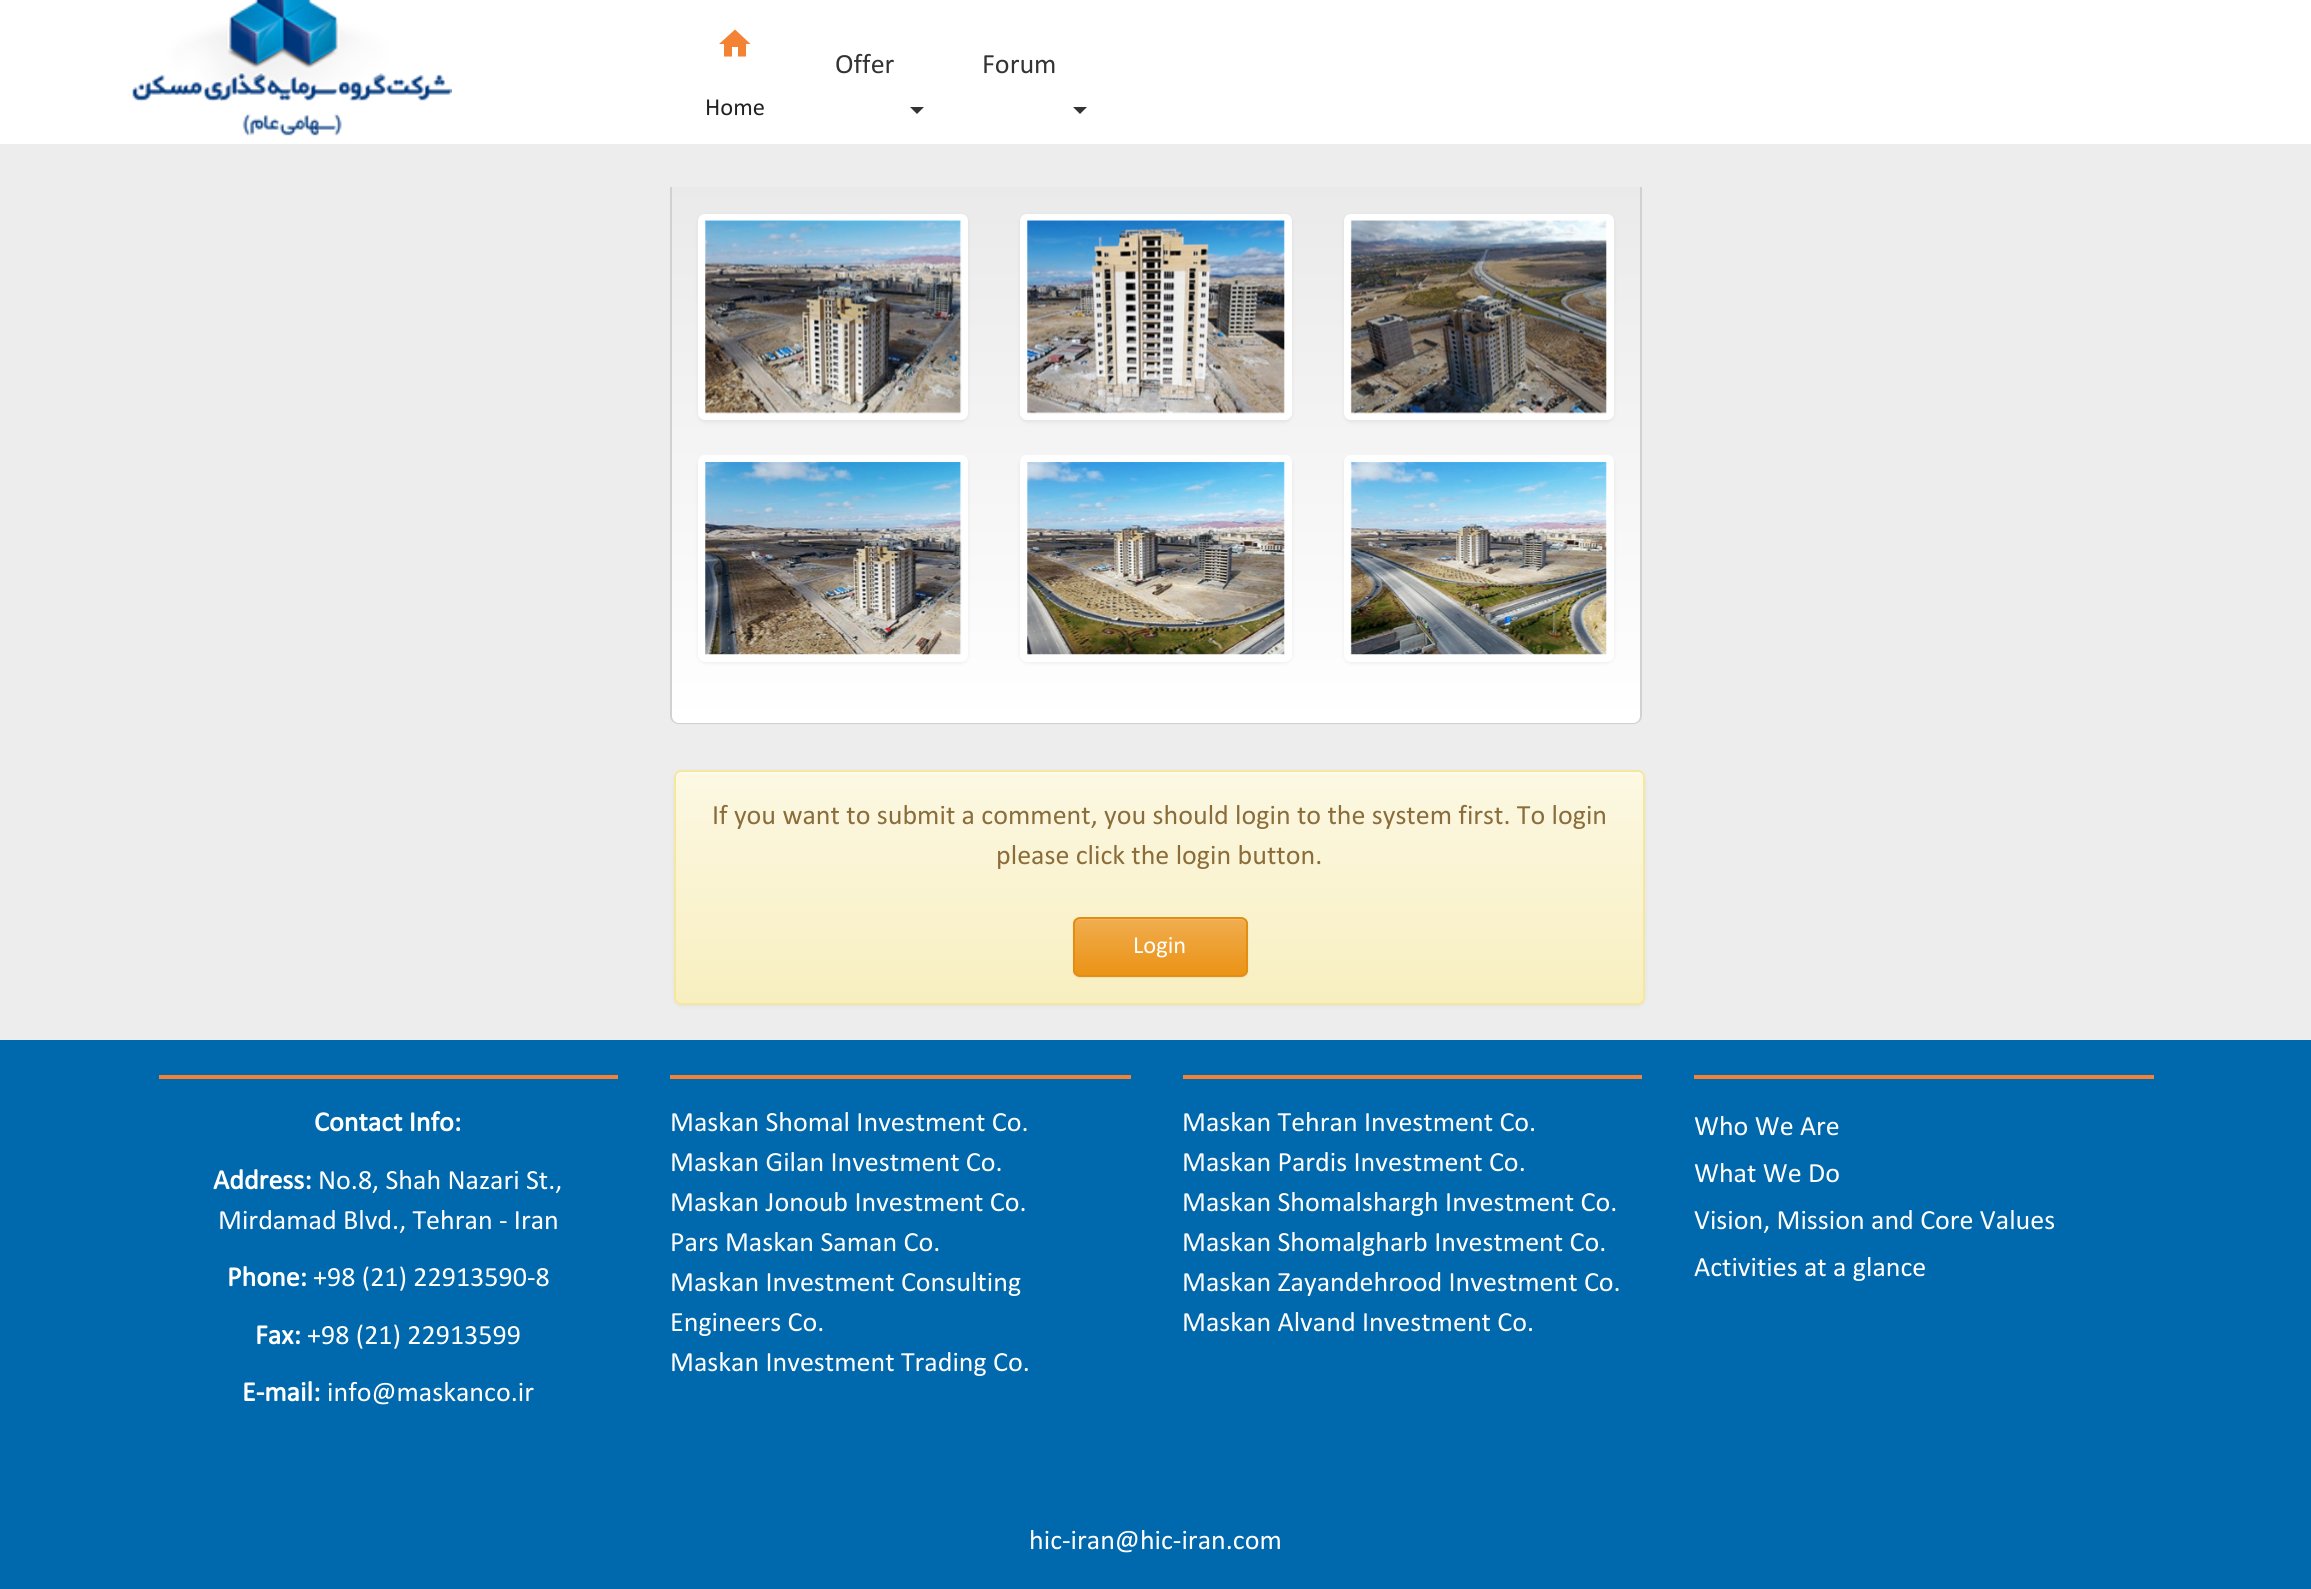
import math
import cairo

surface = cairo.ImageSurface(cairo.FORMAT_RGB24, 2311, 1589)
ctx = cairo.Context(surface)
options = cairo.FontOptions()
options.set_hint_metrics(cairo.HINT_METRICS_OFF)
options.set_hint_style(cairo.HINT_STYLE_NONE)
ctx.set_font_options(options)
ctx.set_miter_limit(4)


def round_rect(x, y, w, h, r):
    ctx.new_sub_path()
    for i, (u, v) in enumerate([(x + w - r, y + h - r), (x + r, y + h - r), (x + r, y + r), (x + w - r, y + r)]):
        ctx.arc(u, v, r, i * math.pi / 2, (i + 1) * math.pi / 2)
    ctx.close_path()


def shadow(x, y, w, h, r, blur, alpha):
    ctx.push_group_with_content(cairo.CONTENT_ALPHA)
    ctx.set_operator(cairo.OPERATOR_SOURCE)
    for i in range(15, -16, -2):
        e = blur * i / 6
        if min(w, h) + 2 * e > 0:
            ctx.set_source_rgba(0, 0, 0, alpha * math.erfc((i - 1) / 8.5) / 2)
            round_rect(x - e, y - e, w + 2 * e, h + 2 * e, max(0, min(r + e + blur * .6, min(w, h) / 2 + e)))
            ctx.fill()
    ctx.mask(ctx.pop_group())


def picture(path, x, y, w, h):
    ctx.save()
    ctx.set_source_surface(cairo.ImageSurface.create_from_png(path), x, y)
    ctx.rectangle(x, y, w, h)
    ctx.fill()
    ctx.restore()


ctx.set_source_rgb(1, 1, 1)
ctx.paint()
picture("img1.png", 132, 0, 320, 136)
ctx.select_font_face("Calibri")
ctx.set_font_size(28)
ctx.set_source_rgb(0.2, 0.2, 0.2)
ctx.move_to(835, 73)
ctx.show_text("Offer")
ctx.new_path()
ctx.move_to(910, 107)
ctx.line_to(924, 107)
ctx.line_to(917, 114)
ctx.close_path()
ctx.fill()
ctx.move_to(982, 73)
ctx.show_text("Forum")
ctx.new_path()
ctx.move_to(1073, 107)
ctx.line_to(1087, 107)
ctx.line_to(1080, 114)
ctx.close_path()
ctx.fill()
ctx.set_source_rgb(0.957, 0.51, 0.208)
ctx.new_path()
ctx.move_to(719, 44)
ctx.line_to(735, 29.5)
ctx.line_to(750.5, 44)
ctx.line_to(746, 44)
ctx.line_to(746, 56.5)
ctx.line_to(738, 56.5)
ctx.line_to(738, 47)
ctx.line_to(732, 47)
ctx.line_to(732, 56.5)
ctx.line_to(724, 56.5)
ctx.line_to(724, 44)
ctx.close_path()
ctx.fill()
ctx.set_font_size(24.5)
ctx.set_source_rgb(0.133, 0.133, 0.133)
ctx.move_to(705, 115)
ctx.show_text("Home")
ctx.set_source_rgb(0.929, 0.929, 0.929)
ctx.rectangle(0, 144, 2311, 896)
ctx.fill()
ctx.save()
ctx.new_path()
ctx.move_to(670, 187)
ctx.line_to(1642, 187)
ctx.line_to(1642, 716)
ctx.curve_to(1642, 721, 1638, 725, 1633, 725)
ctx.line_to(679, 725)
ctx.curve_to(674, 725, 670, 721, 670, 716)
ctx.close_path()
ctx.clip()
gradient = cairo.LinearGradient(1156, 187, 1156, 723)
gradient.add_color_stop_rgba(0, 0.918, 0.918, 0.918, 1)
gradient.add_color_stop_rgba(1, 1, 1, 1, 1)
ctx.set_source(gradient)
ctx.rectangle(670, 187, 972, 536)
ctx.fill()
gradient = cairo.LinearGradient(1156, 723, 1156, 1258)
gradient.add_color_stop_rgba(0, 0.918, 0.918, 0.918, 1)
gradient.add_color_stop_rgba(1, 1, 1, 1, 1)
ctx.set_source(gradient)
ctx.rectangle(670, 723, 972, 2)
ctx.fill()
ctx.restore()
ctx.set_source_rgb(0.82, 0.82, 0.82)
ctx.set_fill_rule(cairo.FILL_RULE_EVEN_ODD)
ctx.new_path()
ctx.move_to(670, 187)
ctx.line_to(1642, 187)
ctx.line_to(1642, 716)
ctx.curve_to(1642, 721, 1638, 724, 1633, 724)
ctx.line_to(679, 724)
ctx.curve_to(674, 724, 670, 721, 670, 716)
ctx.close_path()
ctx.move_to(672, 187)
ctx.line_to(1640, 187)
ctx.line_to(1640, 716)
ctx.curve_to(1640, 720, 1637, 723, 1633, 723)
ctx.line_to(679, 723)
ctx.curve_to(675, 723, 672, 720, 672, 716)
ctx.close_path()
ctx.fill()
ctx.set_source_rgb(0, 0, 0)
shadow(698, 215, 270, 207, 7, 2, 0.07)
ctx.set_source_rgb(1, 1, 1)
round_rect(698, 214, 270, 206, 7)
ctx.fill()
picture("img2.png", 705, 220, 257, 194)
ctx.set_source_rgb(0, 0, 0)
shadow(1020, 215, 272, 207, 7, 2, 0.07)
ctx.set_source_rgb(1, 1, 1)
round_rect(1020, 214, 272, 206, 7)
ctx.fill()
picture("img3.png", 1027, 220, 258, 194)
ctx.set_source_rgb(0, 0, 0)
shadow(1344, 215, 270, 207, 7, 2, 0.07)
ctx.set_source_rgb(1, 1, 1)
round_rect(1344, 214, 270, 206, 7)
ctx.fill()
picture("img4.png", 1350, 220, 257, 194)
ctx.set_source_rgb(0, 0, 0)
shadow(698, 457, 270, 206, 7, 2, 0.07)
ctx.set_source_rgb(1, 1, 1)
round_rect(698, 455, 270, 207, 7)
ctx.fill()
picture("img5.png", 705, 462, 257, 193)
ctx.set_source_rgb(0, 0, 0)
shadow(1020, 457, 272, 206, 7, 2, 0.07)
ctx.set_source_rgb(1, 1, 1)
round_rect(1020, 455, 272, 207, 7)
ctx.fill()
picture("img6.png", 1027, 462, 258, 193)
ctx.set_source_rgb(0, 0, 0)
shadow(1344, 457, 270, 206, 7, 2, 0.07)
ctx.set_source_rgb(1, 1, 1)
round_rect(1344, 455, 270, 207, 7)
ctx.fill()
picture("img7.png", 1350, 462, 257, 193)
ctx.set_source_rgb(0, 0, 0)
shadow(674, 772, 971, 234, 7, 2, 0.05)
ctx.save()
ctx.set_fill_rule(cairo.FILL_RULE_WINDING)
round_rect(674, 770, 971, 235, 7)
ctx.clip()
gradient = cairo.LinearGradient(1159, 772, 1159, 1003)
gradient.add_color_stop_rgba(0, 0.988, 0.973, 0.89, 1)
gradient.add_color_stop_rgba(1, 0.973, 0.937, 0.753, 1)
ctx.set_source(gradient)
ctx.rectangle(674, 772, 971, 231)
ctx.fill()
ctx.restore()
ctx.set_source_rgb(0.992, 0.98, 0.918)
ctx.set_fill_rule(cairo.FILL_RULE_WINDING)
ctx.new_path()
ctx.move_to(681, 774)
ctx.line_to(1638, 774)
ctx.curve_to(1641, 774, 1643, 776, 1643, 779)
ctx.line_to(1643, 777)
ctx.curve_to(1643, 774, 1641, 772, 1638, 772)
ctx.line_to(681, 772)
ctx.curve_to(678, 772, 676, 774, 676, 777)
ctx.line_to(676, 779)
ctx.curve_to(676, 776, 678, 774, 681, 774)
ctx.close_path()
ctx.fill()
round_rect(675, 771, 969, 233, 6)
ctx.set_source_rgb(0.961, 0.906, 0.62)
ctx.stroke()
ctx.set_font_size(28)
ctx.set_source_rgb(0.541, 0.427, 0.231)
ctx.move_to(712, 824)
ctx.show_text("If you want to submit a comment, you should login to the system first. To login")
ctx.move_to(996, 864)
ctx.show_text("please click the login button.")
ctx.set_source_rgb(0, 0, 0)
shadow(1073, 919, 175, 59, 7, 1, 0.07)
ctx.save()
round_rect(1073, 917, 175, 60, 7)
ctx.clip()
gradient = cairo.LinearGradient(1160, 919, 1160, 975)
gradient.add_color_stop_rgba(0, 0.941, 0.678, 0.306, 1)
gradient.add_color_stop_rgba(1, 0.922, 0.576, 0.086, 1)
ctx.set_source(gradient)
ctx.rectangle(1073, 919, 175, 56)
ctx.fill()
ctx.restore()
ctx.set_source_rgba(1, 1, 1, 0.15)
ctx.new_path()
ctx.move_to(1080, 920)
ctx.line_to(1241, 920)
ctx.curve_to(1244, 920, 1246, 923, 1246, 926)
ctx.line_to(1246, 924)
ctx.curve_to(1246, 921, 1244, 919, 1241, 919)
ctx.line_to(1080, 919)
ctx.curve_to(1078, 919, 1076, 921, 1075, 923)
ctx.curve_to(1076, 921, 1078, 920, 1080, 920)
ctx.close_path()
ctx.fill()
round_rect(1074, 918, 173, 58, 6)
ctx.set_source_rgb(0.89, 0.553, 0.075)
ctx.stroke()
ctx.set_font_size(24.5)
ctx.set_source_rgb(1, 1, 1)
ctx.move_to(1133, 953)
ctx.show_text("Login")
ctx.set_source_rgb(0, 0.408, 0.675)
ctx.rectangle(0, 1040, 2311, 549)
ctx.fill()
ctx.set_source_rgb(0.957, 0.51, 0.208)
ctx.rectangle(159, 1075, 459, 4)
ctx.fill()
ctx.select_font_face("Calibri", cairo.FONT_SLANT_NORMAL, cairo.FONT_WEIGHT_BOLD)
ctx.set_font_size(28)
ctx.set_source_rgb(1, 1, 1)
ctx.move_to(314, 1131)
ctx.show_text("Contact Info:")
ctx.move_to(213, 1189)
ctx.show_text("Address:")
ctx.select_font_face("Calibri")
ctx.move_to(318, 1189)
ctx.show_text("No.8, Shah Nazari St.,")
ctx.move_to(218, 1229)
ctx.show_text("Mirdamad Blvd., Tehran - Iran")
ctx.select_font_face("Calibri", cairo.FONT_SLANT_NORMAL, cairo.FONT_WEIGHT_BOLD)
ctx.move_to(227, 1286)
ctx.show_text("Phone:")
ctx.select_font_face("Calibri")
ctx.move_to(313, 1286)
ctx.show_text("+98 (21) 22913590-8")
ctx.select_font_face("Calibri", cairo.FONT_SLANT_NORMAL, cairo.FONT_WEIGHT_BOLD)
ctx.move_to(255, 1344)
ctx.show_text("Fax:")
ctx.select_font_face("Calibri")
ctx.move_to(307, 1344)
ctx.show_text("+98 (21) 22913599")
ctx.select_font_face("Calibri", cairo.FONT_SLANT_NORMAL, cairo.FONT_WEIGHT_BOLD)
ctx.move_to(242, 1401)
ctx.show_text("E-mail:")
ctx.select_font_face("Calibri")
ctx.move_to(327, 1401)
ctx.show_text("info@maskanco.ir")
ctx.set_source_rgb(0.957, 0.51, 0.208)
ctx.rectangle(670, 1075, 461, 4)
ctx.fill()
ctx.set_source_rgb(1, 1, 1)
ctx.move_to(670, 1131)
ctx.show_text("Maskan Shomal Investment Co.")
ctx.move_to(670, 1171)
ctx.show_text("Maskan Gilan Investment Co.")
ctx.move_to(670, 1211)
ctx.show_text("Maskan Jonoub Investment Co.")
ctx.move_to(670, 1251)
ctx.show_text("Pars Maskan Saman Co.")
ctx.move_to(670, 1291)
ctx.show_text("Maskan Investment Consulting")
ctx.move_to(670, 1331)
ctx.show_text("Engineers Co.")
ctx.move_to(670, 1371)
ctx.show_text("Maskan Investment Trading Co.")
ctx.set_source_rgb(0.957, 0.51, 0.208)
ctx.rectangle(1183, 1075, 459, 4)
ctx.fill()
ctx.set_source_rgb(1, 1, 1)
ctx.move_to(1182, 1131)
ctx.show_text("Maskan Tehran Investment Co.")
ctx.move_to(1182, 1171)
ctx.show_text("Maskan Pardis Investment Co.")
ctx.move_to(1182, 1211)
ctx.show_text("Maskan Shomalshargh Investment Co.")
ctx.move_to(1182, 1251)
ctx.show_text("Maskan Shomalgharb Investment Co.")
ctx.move_to(1182, 1291)
ctx.show_text("Maskan Zayandehrood Investment Co.")
ctx.move_to(1182, 1331)
ctx.show_text("Maskan Alvand Investment Co.")
ctx.set_source_rgb(0.957, 0.51, 0.208)
ctx.rectangle(1694, 1075, 460, 4)
ctx.fill()
ctx.set_source_rgb(1, 1, 1)
ctx.move_to(1694, 1135)
ctx.show_text("Who We Are")
ctx.move_to(1694, 1182)
ctx.show_text("What We Do")
ctx.move_to(1694, 1229)
ctx.show_text("Vision, Mission and Core Values")
ctx.move_to(1694, 1276)
ctx.show_text("Activities at a glance")
ctx.move_to(1029, 1549)
ctx.show_text("hic-iran@hic-iran.com")
surface.write_to_png("page.png")
